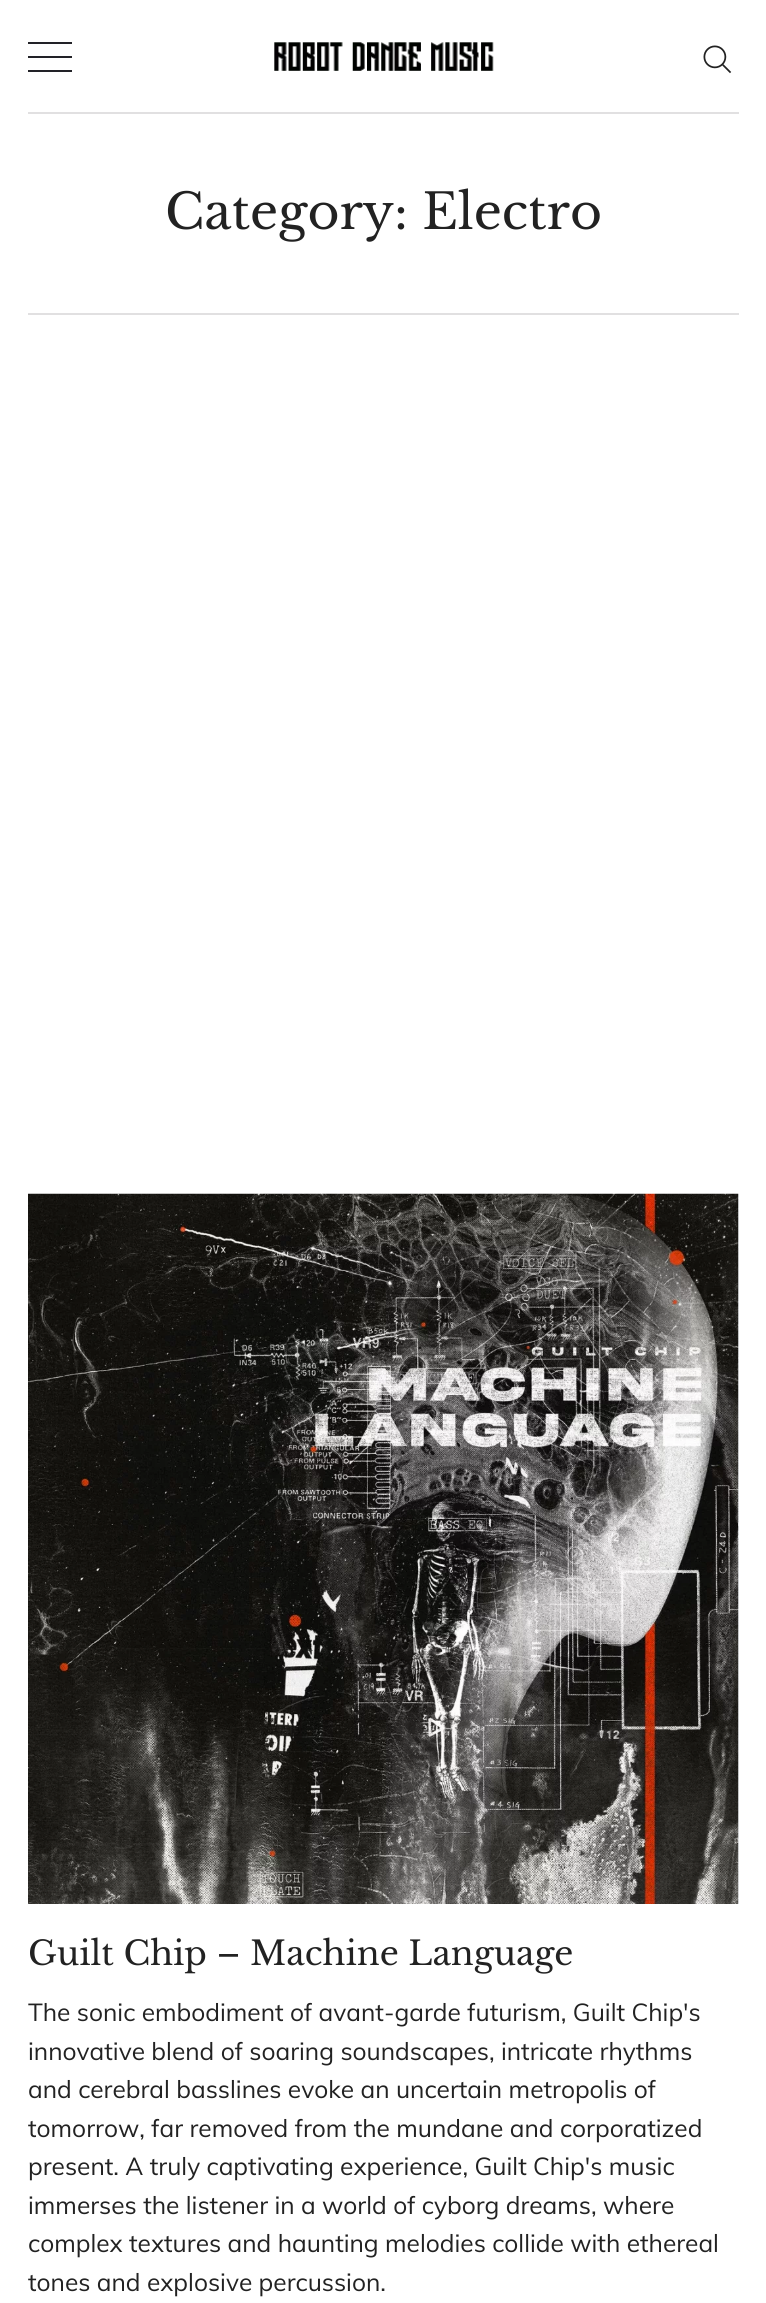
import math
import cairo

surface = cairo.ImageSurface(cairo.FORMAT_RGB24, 766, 2303)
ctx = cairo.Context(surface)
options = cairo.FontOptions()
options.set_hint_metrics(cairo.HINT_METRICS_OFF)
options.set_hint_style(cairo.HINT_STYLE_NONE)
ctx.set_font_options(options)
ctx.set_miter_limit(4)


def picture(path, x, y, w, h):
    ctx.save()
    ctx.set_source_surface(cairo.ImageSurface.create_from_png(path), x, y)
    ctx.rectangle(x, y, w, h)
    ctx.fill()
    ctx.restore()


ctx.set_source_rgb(1, 1, 1)
ctx.paint()
ctx.set_source_rgb(0.882, 0.878, 0.882)
ctx.rectangle(28, 112, 711, 2)
ctx.fill()
ctx.set_source_rgb(0.133, 0.133, 0.157)
ctx.rectangle(28, 42, 44, 2)
ctx.fill()
ctx.rectangle(28, 56, 44, 2)
ctx.fill()
ctx.rectangle(28, 70, 44, 2)
ctx.fill()
picture("img1.png", 274, 42, 220, 29)
picture("img2.png", 703, 45, 29, 29)
ctx.set_source_rgb(0.882, 0.878, 0.882)
ctx.rectangle(28, 313, 711, 2)
ctx.fill()
ctx.select_font_face("Libre Baskerville")
ctx.set_font_size(49)
ctx.set_source_rgb(0.133, 0.133, 0.133)
ctx.move_to(165, 229)
ctx.show_text("Category: Electro")
ctx.set_source_rgb(0.965, 0.976, 0.988)
ctx.rectangle(738, 1194, 1, 710)
ctx.fill()
picture("img3.png", 28, 1193, 711, 711)
ctx.set_font_size(33.25)
ctx.set_source_rgb(0.133, 0.133, 0.133)
ctx.move_to(28, 1965)
ctx.show_text("Guilt Chip – Machine Language")
ctx.select_font_face("Muli")
ctx.set_font_size(24.5)
ctx.move_to(28, 2021)
ctx.show_text("The sonic embodiment of avant-garde futurism, Guilt Chip's")
ctx.move_to(28, 2060)
ctx.show_text("innovative blend of soaring soundscapes, intricate rhythms")
ctx.move_to(28, 2098)
ctx.show_text("and cerebral basslines evoke an uncertain metropolis of")
ctx.move_to(28, 2137)
ctx.show_text("tomorrow, far removed from the mundane and corporatized")
ctx.move_to(28, 2175)
ctx.show_text("present. A truly captivating experience, Guilt Chip's music")
ctx.move_to(28, 2214)
ctx.show_text("immerses the listener in a world of cyborg dreams, where")
ctx.move_to(28, 2252)
ctx.show_text("complex textures and haunting melodies collide with ethereal")
ctx.move_to(28, 2291)
ctx.show_text("tones and explosive percussion.")
surface.write_to_png("page.png")
